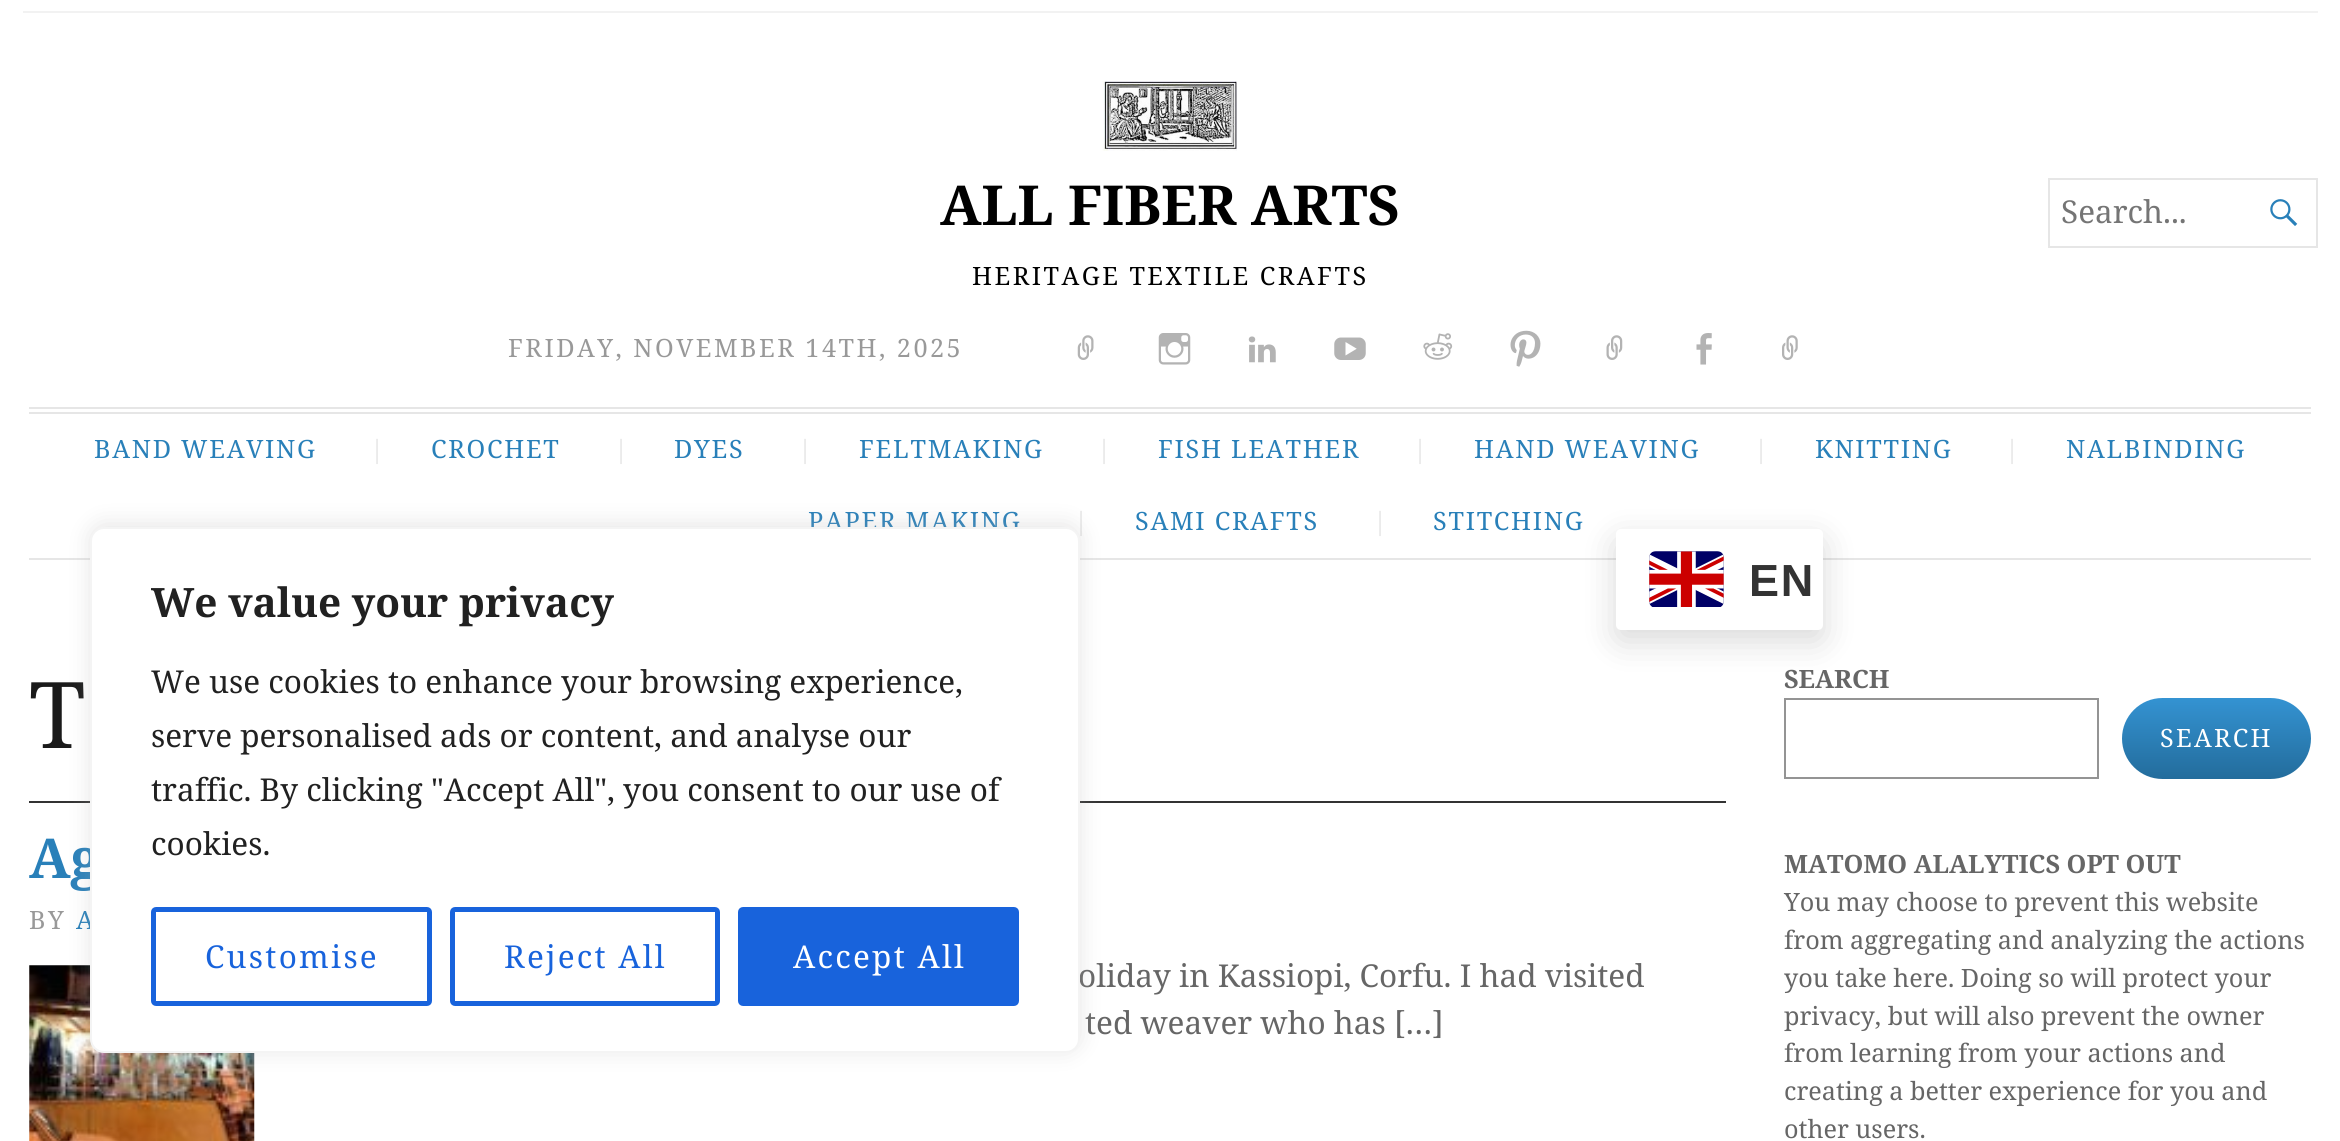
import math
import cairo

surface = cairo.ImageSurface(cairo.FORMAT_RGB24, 2340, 1141)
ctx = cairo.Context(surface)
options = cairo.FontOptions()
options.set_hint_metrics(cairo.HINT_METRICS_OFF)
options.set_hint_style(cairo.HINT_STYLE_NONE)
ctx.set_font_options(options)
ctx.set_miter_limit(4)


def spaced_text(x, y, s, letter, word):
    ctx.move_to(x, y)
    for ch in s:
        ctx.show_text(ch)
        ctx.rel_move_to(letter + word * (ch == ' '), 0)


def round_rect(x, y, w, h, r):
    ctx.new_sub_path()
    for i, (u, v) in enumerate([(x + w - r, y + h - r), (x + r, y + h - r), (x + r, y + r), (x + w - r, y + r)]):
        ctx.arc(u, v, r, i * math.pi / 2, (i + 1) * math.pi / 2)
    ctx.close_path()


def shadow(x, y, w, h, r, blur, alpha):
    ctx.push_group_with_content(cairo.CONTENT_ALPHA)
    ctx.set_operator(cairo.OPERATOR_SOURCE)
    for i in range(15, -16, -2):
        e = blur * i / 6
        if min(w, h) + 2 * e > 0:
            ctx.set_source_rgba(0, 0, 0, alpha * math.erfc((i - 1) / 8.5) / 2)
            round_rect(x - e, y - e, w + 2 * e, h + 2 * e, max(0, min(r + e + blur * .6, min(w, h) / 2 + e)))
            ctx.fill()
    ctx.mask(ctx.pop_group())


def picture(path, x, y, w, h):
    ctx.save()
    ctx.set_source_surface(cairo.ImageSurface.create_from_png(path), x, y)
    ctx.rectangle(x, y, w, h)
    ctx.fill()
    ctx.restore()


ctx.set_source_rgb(1, 1, 1)
ctx.paint()
ctx.set_source_rgb(0.949, 0.949, 0.949)
ctx.rectangle(23, 11, 2295, 2)
ctx.fill()
picture("img1.png", 1102, 81, 135, 70)
ctx.select_font_face("Noto Serif", cairo.FONT_SLANT_NORMAL, cairo.FONT_WEIGHT_BOLD)
ctx.set_font_size(55.1)
ctx.set_source_rgb(0, 0, 0)
ctx.move_to(940, 225)
ctx.show_text("ALL FIBER ARTS")
ctx.select_font_face("Noto Serif")
ctx.set_font_size(25.2)
spaced_text(972, 285, "HERITAGE TEXTILE CRAFTS", 2.5, 0)
ctx.set_source_rgb(0.6, 0.6, 0.6)
spaced_text(508, 357, "FRIDAY, NOVEMBER 14TH, 2025", 2.5, 0)
picture("img2.png", 1077, 335, 17, 25)
picture("img3.png", 1158, 333, 33, 32)
picture("img4.png", 1248, 336, 28, 27)
picture("img5.png", 1334, 337, 32, 23)
picture("img6.png", 1423, 333, 30, 27)
picture("img7.png", 1510, 330, 31, 37)
picture("img8.png", 1606, 335, 17, 25)
picture("img9.png", 1696, 333, 16, 32)
picture("img10.png", 1782, 335, 16, 25)
ctx.rectangle(2049, 179, 268, 68)
ctx.set_source_rgb(0.902, 0.902, 0.902)
ctx.stroke()
ctx.set_font_size(31.5)
ctx.set_source_rgb(0.459, 0.459, 0.459)
ctx.move_to(2061, 223)
ctx.show_text("Search...")
picture("img11.png", 2270, 199, 28, 27)
ctx.set_source_rgb(0.902, 0.902, 0.902)
ctx.rectangle(29, 407, 2282, 2)
ctx.fill()
ctx.rectangle(29, 412, 2282, 2)
ctx.fill()
ctx.rectangle(29, 558, 2282, 2)
ctx.fill()
ctx.set_font_size(25.2)
ctx.set_source_rgb(0.161, 0.502, 0.725)
spaced_text(94, 458, "BAND WEAVING", 1.75, 0)
ctx.set_source_rgb(0.902, 0.902, 0.902)
spaced_text(370, 458, "|", 1.75, 0)
ctx.set_source_rgb(0.161, 0.502, 0.725)
spaced_text(431, 458, "CROCHET", 1.75, 0)
ctx.set_source_rgb(0.902, 0.902, 0.902)
spaced_text(614, 458, "|", 1.75, 0)
ctx.set_source_rgb(0.161, 0.502, 0.725)
spaced_text(674, 458, "DYES", 1.75, 0)
ctx.set_source_rgb(0.902, 0.902, 0.902)
spaced_text(798, 458, "|", 1.75, 0)
ctx.set_source_rgb(0.161, 0.502, 0.725)
spaced_text(859, 458, "FELTMAKING", 1.75, 0)
ctx.set_source_rgb(0.902, 0.902, 0.902)
spaced_text(1097, 458, "|", 1.75, 0)
ctx.set_source_rgb(0.161, 0.502, 0.725)
spaced_text(1158, 458, "FISH LEATHER", 1.75, 0)
ctx.set_source_rgb(0.902, 0.902, 0.902)
spaced_text(1413, 458, "|", 1.75, 0)
ctx.set_source_rgb(0.161, 0.502, 0.725)
spaced_text(1474, 458, "HAND WEAVING", 1.75, 0)
ctx.set_source_rgb(0.902, 0.902, 0.902)
spaced_text(1754, 458, "|", 1.75, 0)
ctx.set_source_rgb(0.161, 0.502, 0.725)
spaced_text(1815, 458, "KNITTING", 1.75, 0)
ctx.set_source_rgb(0.902, 0.902, 0.902)
spaced_text(2005, 458, "|", 1.75, 0)
ctx.set_source_rgb(0.161, 0.502, 0.725)
spaced_text(2066, 458, "NALBINDING", 1.75, 0)
spaced_text(808, 530, "PAPER MAKING", 1.75, 0)
ctx.set_source_rgb(0.902, 0.902, 0.902)
spaced_text(1074, 530, "|", 1.75, 0)
ctx.set_source_rgb(0.161, 0.502, 0.725)
spaced_text(1135, 530, "SAMI CRAFTS", 1.75, 0)
ctx.set_source_rgb(0.902, 0.902, 0.902)
spaced_text(1373, 530, "|", 1.75, 0)
ctx.set_source_rgb(0.161, 0.502, 0.725)
spaced_text(1433, 530, "STITCHING", 1.75, 0)
ctx.set_source_rgb(0, 0, 0)
shadow(1616, 540, 207, 101, 5, 17, 0.15)
ctx.set_source_rgb(1, 1, 1)
round_rect(1616, 529, 207, 101, 5)
ctx.fill()
picture("img12.png", 1649, 551, 75, 56)
ctx.select_font_face("Liberation Sans", cairo.FONT_SLANT_NORMAL, cairo.FONT_WEIGHT_BOLD)
ctx.set_font_size(45)
ctx.set_source_rgb(0.2, 0.2, 0.2)
spaced_text(1749, 596, "EN", 1.75, 0)
ctx.select_font_face("Noto Serif")
ctx.set_font_size(92)
ctx.set_source_rgb(0.102, 0.102, 0.102)
ctx.move_to(29, 748)
ctx.show_text("T")
ctx.set_source_rgb(0.2, 0.2, 0.2)
ctx.rectangle(29, 801, 1697, 2)
ctx.fill()
ctx.select_font_face("Noto Serif", cairo.FONT_SLANT_NORMAL, cairo.FONT_WEIGHT_BOLD)
ctx.set_font_size(55.1)
ctx.set_source_rgb(0.161, 0.502, 0.725)
ctx.move_to(29, 878)
ctx.show_text("Ag")
ctx.select_font_face("Noto Serif")
ctx.set_font_size(25.2)
ctx.set_source_rgb(0.6, 0.6, 0.6)
spaced_text(29, 929, "BY", 2.5, 0)
ctx.set_source_rgb(0.161, 0.502, 0.725)
spaced_text(76, 929, "A", 2.5, 0)
picture("img13.png", 29, 965, 226, 176)
ctx.set_font_size(31.5)
ctx.set_source_rgb(0.4, 0.4, 0.4)
ctx.move_to(1078, 987)
ctx.show_text("oliday in Kassiopi, Corfu. I had visited")
ctx.move_to(1085, 1034)
ctx.show_text("ted weaver who has […]")
ctx.select_font_face("Noto Serif", cairo.FONT_SLANT_NORMAL, cairo.FONT_WEIGHT_BOLD)
ctx.set_font_size(25.2)
ctx.move_to(1784, 688)
ctx.show_text("SEARCH")
ctx.rectangle(1785, 699, 313, 79)
ctx.set_source_rgb(0.58, 0.58, 0.58)
ctx.stroke()
gradient = cairo.LinearGradient(2216, 698, 2216, 779)
gradient.add_color_stop_rgba(0, 0.204, 0.576, 0.824, 1)
gradient.add_color_stop_rgba(1, 0.137, 0.424, 0.612, 1)
ctx.set_source(gradient)
round_rect(2122, 698, 189, 81, 40.5)
ctx.fill()
ctx.select_font_face("Noto Serif")
ctx.set_source_rgb(1, 1, 1)
spaced_text(2160, 747, "SEARCH", 2.25, 0)
ctx.select_font_face("Noto Serif", cairo.FONT_SLANT_NORMAL, cairo.FONT_WEIGHT_BOLD)
ctx.set_source_rgb(0.4, 0.4, 0.4)
ctx.move_to(1784, 873)
ctx.show_text("MATOMO ALALYTICS OPT OUT")
ctx.select_font_face("Noto Serif")
ctx.move_to(1784, 911)
ctx.show_text("You may choose to prevent this website")
ctx.move_to(1784, 949)
ctx.show_text("from aggregating and analyzing the actions")
ctx.move_to(1784, 987)
ctx.show_text("you take here. Doing so will protect your")
ctx.move_to(1784, 1025)
ctx.show_text("privacy, but will also prevent the owner")
ctx.move_to(1784, 1062)
ctx.show_text("from learning from your actions and")
ctx.move_to(1784, 1100)
ctx.show_text("creating a better experience for you and")
ctx.move_to(1784, 1138)
ctx.show_text("other users.")
ctx.set_source_rgb(0.675, 0.671, 0.671)
shadow(90, 524, 990, 527, 14, 11, 0.3)
ctx.set_source_rgb(1, 1, 1)
round_rect(91, 528, 988, 524, 13)
ctx.fill_preserve()
ctx.set_source_rgb(0.957, 0.957, 0.957)
ctx.stroke()
ctx.select_font_face("Noto Serif", cairo.FONT_SLANT_NORMAL, cairo.FONT_WEIGHT_BOLD)
ctx.set_font_size(40.5)
ctx.set_source_rgb(0.129, 0.129, 0.129)
ctx.move_to(151, 617)
ctx.show_text("We value your privacy")
ctx.select_font_face("Noto Serif")
ctx.set_font_size(31.5)
ctx.move_to(151, 693)
ctx.show_text("We use cookies to enhance your browsing experience,")
ctx.move_to(151, 747)
ctx.show_text("serve personalised ads or content, and analyse our")
ctx.move_to(151, 801)
ctx.show_text("traffic. By clicking \"Accept All\", you consent to our use of")
ctx.move_to(151, 855)
ctx.show_text("cookies.")
round_rect(153.5, 909.5, 276, 94, 2.5)
ctx.set_source_rgb(0.094, 0.388, 0.863)
ctx.set_line_width(5)
ctx.stroke()
spaced_text(205, 968, "Customise", 2.25, 0)
round_rect(452.5, 909.5, 265, 94, 2.5)
ctx.stroke()
spaced_text(504, 968, "Reject All", 2.25, 0)
round_rect(740.5, 909.5, 276, 94, 2.5)
ctx.fill_preserve()
ctx.stroke()
ctx.set_source_rgb(1, 1, 1)
spaced_text(793, 968, "Accept All", 2.25, 0)
surface.write_to_png("page.png")
